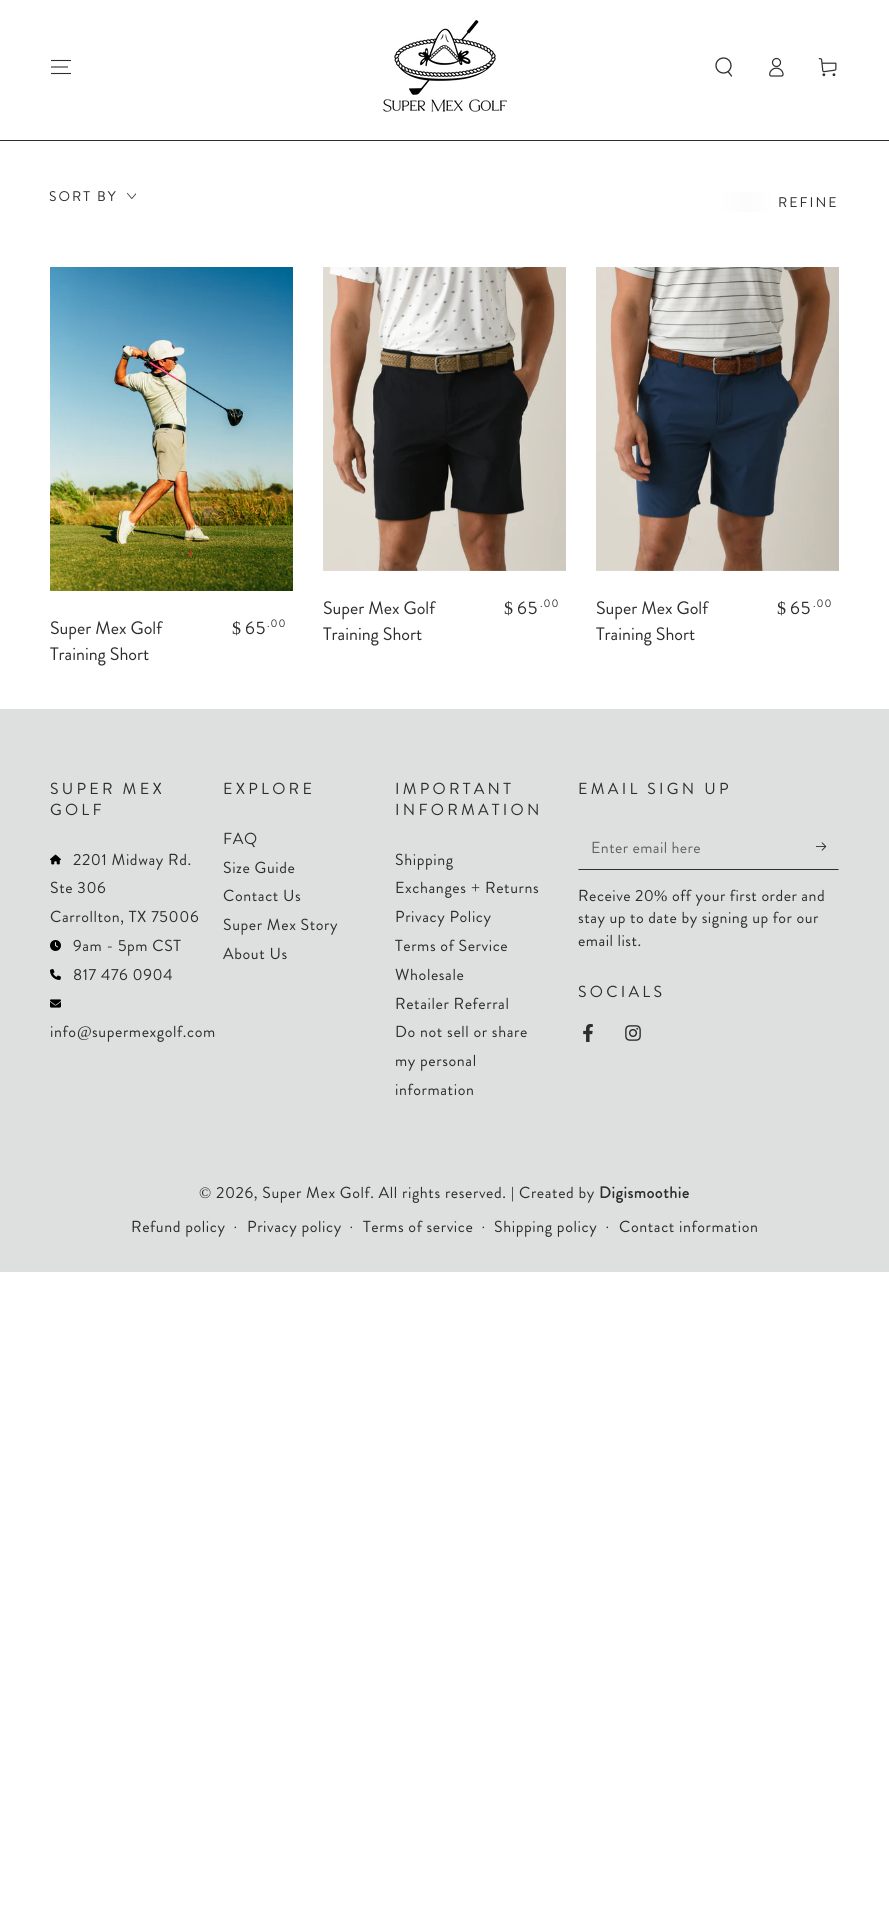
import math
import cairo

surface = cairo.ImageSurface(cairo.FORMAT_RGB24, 889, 1925)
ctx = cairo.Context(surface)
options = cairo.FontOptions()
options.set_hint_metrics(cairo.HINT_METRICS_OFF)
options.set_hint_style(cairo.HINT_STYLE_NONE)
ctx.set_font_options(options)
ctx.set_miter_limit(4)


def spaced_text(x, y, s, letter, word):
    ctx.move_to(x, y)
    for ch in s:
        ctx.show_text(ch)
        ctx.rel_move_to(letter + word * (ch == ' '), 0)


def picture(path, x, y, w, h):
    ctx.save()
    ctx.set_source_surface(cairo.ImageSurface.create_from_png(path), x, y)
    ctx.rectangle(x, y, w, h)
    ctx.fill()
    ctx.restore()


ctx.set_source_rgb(1, 1, 1)
ctx.paint()
ctx.set_source_rgb(0.176, 0.173, 0.184)
ctx.rectangle(0, 140, 889, 1)
ctx.fill()
ctx.new_path()
ctx.move_to(51, 73.5)
ctx.line_to(71, 73.5)
ctx.move_to(51, 67)
ctx.line_to(68, 67)
ctx.move_to(51, 60.5)
ctx.line_to(71, 60.5)
ctx.set_line_width(1.1)
ctx.stroke()
picture("img1.png", 383, 20, 124, 92)
ctx.arc(723.5, 65.5, 7.5, 0, 2 * math.pi)
ctx.set_line_width(1.3)
ctx.stroke()
ctx.new_path()
ctx.move_to(728, 71.5)
ctx.line_to(731.5, 76)
ctx.set_line_cap(cairo.LINE_CAP_ROUND)
ctx.stroke()
picture("img2.png", 769, 57, 15, 20)
picture("img3.png", 818, 58, 19, 19)
ctx.select_font_face("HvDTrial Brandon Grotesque")
ctx.set_font_size(14)
spaced_text(49, 201, "SORT BY", 2, 0)
picture("img4.png", 127, 193, 9, 6)
gradient = cairo.LinearGradient(717, 202, 778, 202)
gradient.add_color_stop_rgba(0, 1, 1, 1, 1)
gradient.add_color_stop_rgba(0.5, 0.988, 0.988, 0.988, 1)
gradient.add_color_stop_rgba(1, 1, 1, 1, 1)
ctx.set_source(gradient)
ctx.new_path()
ctx.move_to(719, 192)
ctx.line_to(780, 192)
ctx.line_to(775, 212)
ctx.line_to(714, 212)
ctx.close_path()
ctx.fill()
ctx.set_source_rgb(0.176, 0.173, 0.184)
spaced_text(778, 207, "REFINE", 2, 0)
picture("img5.png", 50, 267, 243, 324)
ctx.set_font_size(18)
ctx.move_to(50, 634)
ctx.show_text("Super Mex Golf")
ctx.move_to(50, 660)
ctx.show_text("Training Short")
ctx.select_font_face("Liberation Serif")
spaced_text(232, 634, "$", 1, 0)
ctx.select_font_face("HvDTrial Brandon Grotesque")
spaced_text(245, 634, "65", 1, 0)
ctx.set_font_size(11)
spaced_text(267, 627, ".00", 1, 0)
picture("img6.png", 323, 267, 243, 304)
ctx.set_font_size(18)
ctx.move_to(323, 614)
ctx.show_text("Super Mex Golf")
ctx.move_to(323, 640)
ctx.show_text("Training Short")
ctx.select_font_face("Liberation Serif")
spaced_text(504, 614, "$", 1, 0)
ctx.select_font_face("HvDTrial Brandon Grotesque")
spaced_text(517, 614, "65", 1, 0)
ctx.set_font_size(11)
spaced_text(540, 607, ".00", 1, 0)
picture("img7.png", 596, 267, 243, 304)
ctx.set_font_size(18)
ctx.move_to(596, 614)
ctx.show_text("Super Mex Golf")
ctx.move_to(596, 640)
ctx.show_text("Training Short")
ctx.select_font_face("Liberation Serif")
spaced_text(777, 614, "$", 1, 0)
ctx.select_font_face("HvDTrial Brandon Grotesque")
spaced_text(790, 614, "65", 1, 0)
ctx.set_font_size(11)
spaced_text(813, 607, ".00", 1, 0)
ctx.set_source_rgb(0.867, 0.878, 0.875)
ctx.rectangle(0, 709, 889, 563)
ctx.fill()
ctx.set_font_size(16)
ctx.set_source_rgb(0.176, 0.173, 0.184)
spaced_text(50, 794, "SUPER MEX", 3.25, 0)
spaced_text(50, 815, "GOLF", 3.25, 0)
picture("img8.png", 50, 854, 11, 11)
spaced_text(73, 865, "2201 Midway Rd.", 0.6, 0)
spaced_text(50, 893, "Ste 306", 0.6, 0)
spaced_text(50, 922, "Carrollton, TX 75006", 0.6, 0)
picture("img9.png", 50, 940, 11, 11)
spaced_text(73, 951, "9am - 5pm CST", 0.6, 0)
picture("img10.png", 50, 969, 11, 11)
spaced_text(73, 980, "817 476 0904", 0.6, 0)
picture("img11.png", 50, 999, 11, 9)
spaced_text(50, 1037, "info", 0.6, 0)
ctx.select_font_face("Liberation Serif")
spaced_text(77, 1037, "@", 0.6, 0)
ctx.select_font_face("HvDTrial Brandon Grotesque")
spaced_text(92, 1037, "supermexgolf.com", 0.6, 0)
spaced_text(223, 794, "EXPLORE", 3.25, 0)
spaced_text(223, 844, "FAQ", 0.6, 0)
spaced_text(223, 873, "Size Guide", 0.6, 0)
spaced_text(223, 901, "Contact Us", 0.6, 0)
spaced_text(223, 930, "Super Mex Story", 0.6, 0)
spaced_text(223, 959, "About Us", 0.6, 0)
spaced_text(395, 794, "IMPORTANT", 3.25, 0)
spaced_text(395, 815, "INFORMATION", 3.25, 0)
spaced_text(395, 865, "Shipping", 0.6, 0)
spaced_text(395, 893, "Exchanges", 0.6, 0)
ctx.select_font_face("Liberation Serif")
spaced_text(471, 893, "+", 0.6, 0)
ctx.select_font_face("HvDTrial Brandon Grotesque")
spaced_text(485, 893, "Returns", 0.6, 0)
spaced_text(395, 922, "Privacy Policy", 0.6, 0)
spaced_text(395, 951, "Terms of Service", 0.6, 0)
spaced_text(395, 980, "Wholesale", 0.6, 0)
spaced_text(395, 1009, "Retailer Referral", 0.6, 0)
spaced_text(395, 1037, "Do not sell or share", 0.6, 0)
spaced_text(395, 1066, "my personal", 0.6, 0)
spaced_text(395, 1095, "information", 0.6, 0)
spaced_text(578, 794, "EMAIL SIGN UP", 3.25, 0)
ctx.new_path()
ctx.move_to(839, 870)
ctx.line_to(578, 870)
ctx.line_to(579, 869)
ctx.line_to(838, 869)
ctx.close_path()
ctx.fill()
ctx.set_source_rgb(0.384, 0.384, 0.392)
spaced_text(591, 853, "Enter email here", 0.4, 0)
picture("img12.png", 816, 842, 11, 9)
ctx.set_source_rgb(0.176, 0.173, 0.184)
spaced_text(578, 901, "Receive 20", 0.5, 0)
ctx.select_font_face("Liberation Serif")
spaced_text(654, 901, "%", 0.5, 0)
ctx.select_font_face("HvDTrial Brandon Grotesque")
spaced_text(672, 901, "off your first order and", 0.5, 0)
spaced_text(578, 923, "stay up to date by signing up for our", 0.5, 0)
spaced_text(578, 946, "email list.", 0.5, 0)
spaced_text(578, 997, "SOCIALS", 3.25, 0)
picture("img13.png", 583, 1024, 10, 18)
picture("img14.png", 625, 1025, 16, 16)
ctx.select_font_face("Liberation Serif")
spaced_text(199, 1198, "©", 0.6, 0)
ctx.select_font_face("HvDTrial Brandon Grotesque")
spaced_text(216, 1198, "2026, Super Mex Golf. All rights reserved.", 0.6, 0)
ctx.select_font_face("Liberation Serif")
spaced_text(511, 1198, "|", 0.6, 0)
ctx.select_font_face("HvDTrial Brandon Grotesque")
spaced_text(519, 1198, "Created by", 0.6, 0)
ctx.select_font_face("HvDTrial Brandon Grotesque", cairo.FONT_SLANT_NORMAL, cairo.FONT_WEIGHT_BOLD)
spaced_text(599, 1198, "Digismoothie", 0.6, 0)
ctx.select_font_face("HvDTrial Brandon Grotesque")
spaced_text(131, 1232, "Refund policy", 0.6, 0)
ctx.select_font_face("Liberation Serif")
ctx.set_font_size(14)
spaced_text(233, 1232, "·", 0.6, 0)
ctx.select_font_face("HvDTrial Brandon Grotesque")
ctx.set_font_size(16)
spaced_text(247, 1232, "Privacy policy", 0.6, 0)
ctx.select_font_face("Liberation Serif")
ctx.set_font_size(14)
spaced_text(349, 1232, "·", 0.6, 0)
ctx.select_font_face("HvDTrial Brandon Grotesque")
ctx.set_font_size(16)
spaced_text(363, 1232, "Terms of service", 0.6, 0)
ctx.select_font_face("Liberation Serif")
ctx.set_font_size(14)
spaced_text(481, 1232, "·", 0.6, 0)
ctx.select_font_face("HvDTrial Brandon Grotesque")
ctx.set_font_size(16)
spaced_text(494, 1232, "Shipping policy", 0.6, 0)
ctx.select_font_face("Liberation Serif")
ctx.set_font_size(14)
spaced_text(605, 1232, "·", 0.6, 0)
ctx.select_font_face("HvDTrial Brandon Grotesque")
ctx.set_font_size(16)
spaced_text(619, 1232, "Contact information", 0.6, 0)
surface.write_to_png("page.png")
